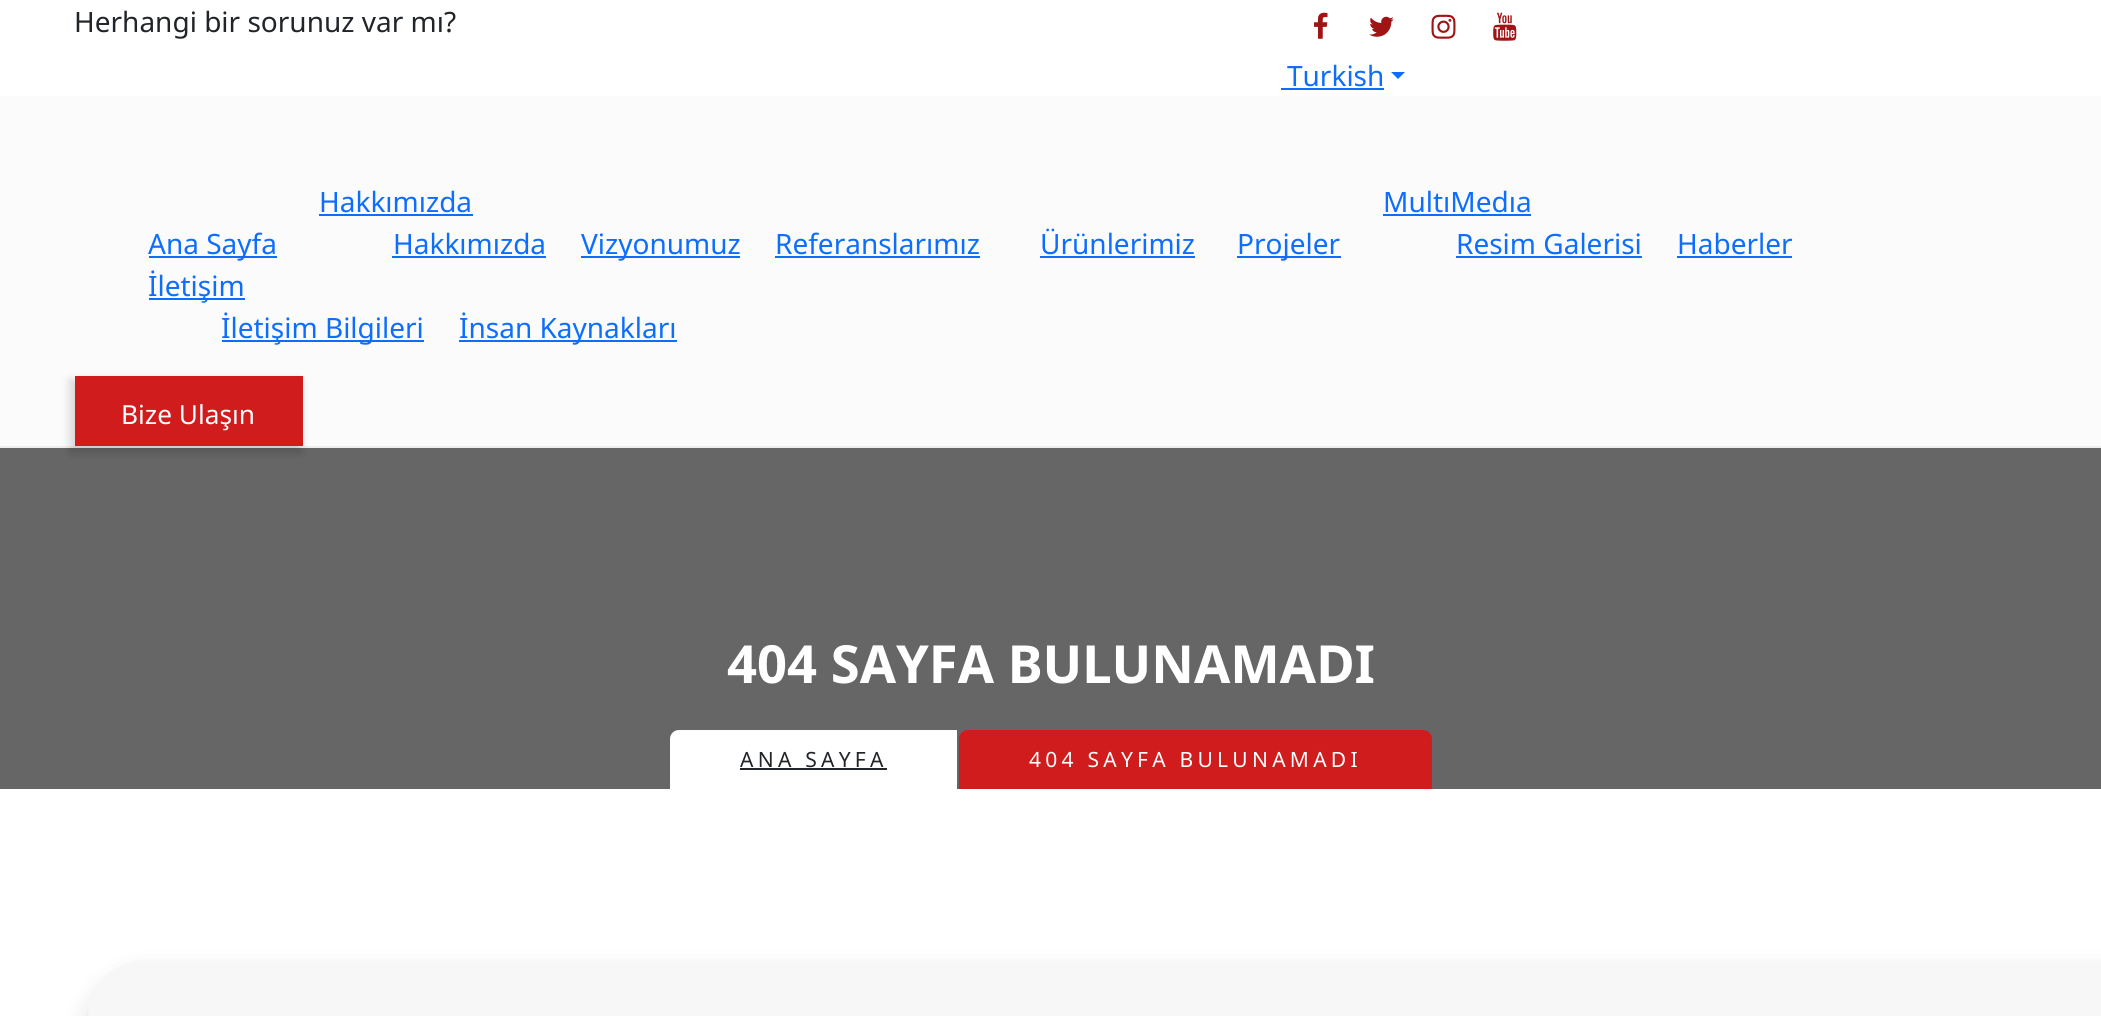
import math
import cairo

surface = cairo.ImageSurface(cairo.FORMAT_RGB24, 2101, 1016)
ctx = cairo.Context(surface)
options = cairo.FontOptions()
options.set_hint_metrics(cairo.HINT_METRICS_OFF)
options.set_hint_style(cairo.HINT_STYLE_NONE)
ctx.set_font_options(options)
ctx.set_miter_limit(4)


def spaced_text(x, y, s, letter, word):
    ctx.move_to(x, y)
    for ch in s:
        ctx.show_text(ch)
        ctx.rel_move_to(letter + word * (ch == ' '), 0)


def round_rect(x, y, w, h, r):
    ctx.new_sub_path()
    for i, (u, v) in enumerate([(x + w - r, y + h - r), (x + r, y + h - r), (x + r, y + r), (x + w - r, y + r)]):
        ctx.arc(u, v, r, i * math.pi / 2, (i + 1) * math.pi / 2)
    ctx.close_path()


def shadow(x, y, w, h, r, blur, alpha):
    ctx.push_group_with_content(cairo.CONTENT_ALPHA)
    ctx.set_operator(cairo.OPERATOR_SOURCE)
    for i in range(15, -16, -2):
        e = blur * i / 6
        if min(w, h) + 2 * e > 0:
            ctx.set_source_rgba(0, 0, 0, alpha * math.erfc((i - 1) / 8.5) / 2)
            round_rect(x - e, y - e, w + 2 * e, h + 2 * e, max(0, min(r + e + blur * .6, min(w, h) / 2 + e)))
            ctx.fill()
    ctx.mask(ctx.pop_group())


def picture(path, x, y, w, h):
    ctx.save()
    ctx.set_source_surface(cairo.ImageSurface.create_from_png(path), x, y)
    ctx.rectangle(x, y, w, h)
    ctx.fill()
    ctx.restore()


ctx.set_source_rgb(1, 1, 1)
ctx.paint()
ctx.select_font_face("Noto Sans")
ctx.set_font_size(28)
ctx.set_source_rgb(0.129, 0.145, 0.161)
ctx.move_to(74, 32)
ctx.show_text("Herhangi bir sorunuz var mı?")
picture("img1.png", 1314, 12, 14, 27)
picture("img2.png", 1369, 16, 25, 21)
picture("img3.png", 1431, 14, 25, 25)
picture("img4.png", 1493, 12, 24, 29)
ctx.set_source_rgb(0.051, 0.431, 0.992)
ctx.move_to(1287, 86)
ctx.show_text("Turkish")
ctx.rectangle(1281, 88, 103, 2)
ctx.fill()
ctx.new_path()
ctx.move_to(1391, 72)
ctx.line_to(1405, 72)
ctx.line_to(1398, 79)
ctx.close_path()
ctx.fill()
ctx.set_source_rgb(0.984, 0.984, 0.984)
ctx.rectangle(0, 96, 2101, 350)
ctx.fill()
ctx.set_source_rgb(0.933, 0.933, 0.933)
ctx.rectangle(0, 446, 2101, 2)
ctx.fill()
ctx.set_source_rgb(0.051, 0.431, 0.992)
ctx.rectangle(149, 256, 128, 2)
ctx.fill()
ctx.move_to(148, 254)
ctx.show_text("Ana Sayfa")
ctx.move_to(319, 212)
ctx.show_text("Hakkımızda")
ctx.rectangle(319, 214, 154, 2)
ctx.fill()
ctx.move_to(393, 254)
ctx.show_text("Hakkımızda")
ctx.rectangle(392, 256, 154, 2)
ctx.fill()
ctx.rectangle(581, 256, 159, 2)
ctx.fill()
ctx.move_to(581, 254)
ctx.show_text("Vizyonumuz")
ctx.move_to(775, 254)
ctx.show_text("Referanslarımız")
ctx.rectangle(775, 256, 205, 2)
ctx.fill()
ctx.move_to(1040, 254)
ctx.show_text("Ürünlerimiz")
ctx.rectangle(1040, 256, 155, 2)
ctx.fill()
ctx.rectangle(1237, 256, 104, 2)
ctx.fill()
ctx.move_to(1237, 254)
ctx.show_text("Projeler")
ctx.move_to(1383, 212)
ctx.show_text("MultıMedıa")
ctx.rectangle(1383, 214, 148, 2)
ctx.fill()
ctx.move_to(1456, 254)
ctx.show_text("Resim Galerisi")
ctx.rectangle(1456, 256, 186, 2)
ctx.fill()
ctx.move_to(1677, 254)
ctx.show_text("Haberler")
ctx.rectangle(1677, 256, 115, 2)
ctx.fill()
ctx.rectangle(149, 298, 96, 2)
ctx.fill()
ctx.move_to(148, 296)
ctx.show_text("İletişim")
ctx.rectangle(222, 340, 202, 2)
ctx.fill()
ctx.move_to(221, 338)
ctx.show_text("İletişim Bilgileri")
ctx.rectangle(459, 340, 218, 2)
ctx.fill()
ctx.move_to(459, 338)
ctx.show_text("İnsan Kaynakları")
ctx.set_source_rgb(0, 0, 0)
shadow(70, 380, 231, 73, 0, 4.5, 0.15)
ctx.set_source_rgb(0.816, 0.11, 0.11)
ctx.rectangle(75, 376, 228, 70)
ctx.fill()
ctx.set_font_size(26.25)
ctx.set_source_rgb(1, 1, 1)
ctx.move_to(121, 424)
ctx.show_text("Bize Ulaşın")
ctx.set_source_rgba(0, 0, 0, 0.6)
ctx.rectangle(0, 448, 2101, 341)
ctx.fill()
ctx.select_font_face("Noto Sans", cairo.FONT_SLANT_NORMAL, cairo.FONT_WEIGHT_BOLD)
ctx.set_font_size(52.5)
ctx.set_source_rgb(1, 1, 1)
ctx.move_to(727, 683)
ctx.show_text("404 SAYFA BULUNAMADI")
ctx.new_path()
ctx.move_to(679, 730)
ctx.line_to(957, 730)
ctx.line_to(957, 789)
ctx.line_to(670, 789)
ctx.line_to(670, 739)
ctx.curve_to(670, 734, 674, 730, 679, 730)
ctx.close_path()
ctx.fill()
ctx.select_font_face("Noto Sans")
ctx.set_font_size(21)
ctx.set_source_rgb(0.129, 0.145, 0.161)
spaced_text(740, 767, "ANA SAYFA", 4.25, 0)
ctx.rectangle(740, 768, 147, 2)
ctx.fill()
ctx.set_source_rgb(0.816, 0.11, 0.11)
ctx.new_path()
ctx.move_to(968, 730)
ctx.line_to(1423, 730)
ctx.curve_to(1428, 730, 1432, 734, 1432, 739)
ctx.line_to(1432, 789)
ctx.line_to(959, 789)
ctx.line_to(959, 739)
ctx.curve_to(959, 734, 963, 730, 968, 730)
ctx.close_path()
ctx.fill()
ctx.set_source_rgb(1, 1, 1)
spaced_text(1029, 767, "404 SAYFA BULUNAMADI", 4.25, 0)
ctx.set_source_rgb(0, 0, 0)
shadow(88, 975, 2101, 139, 56, 14, 0.15)
ctx.set_source_rgb(0.969, 0.965, 0.969)
round_rect(88, 961, 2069, 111, 56)
ctx.fill()
surface.write_to_png("page.png")
